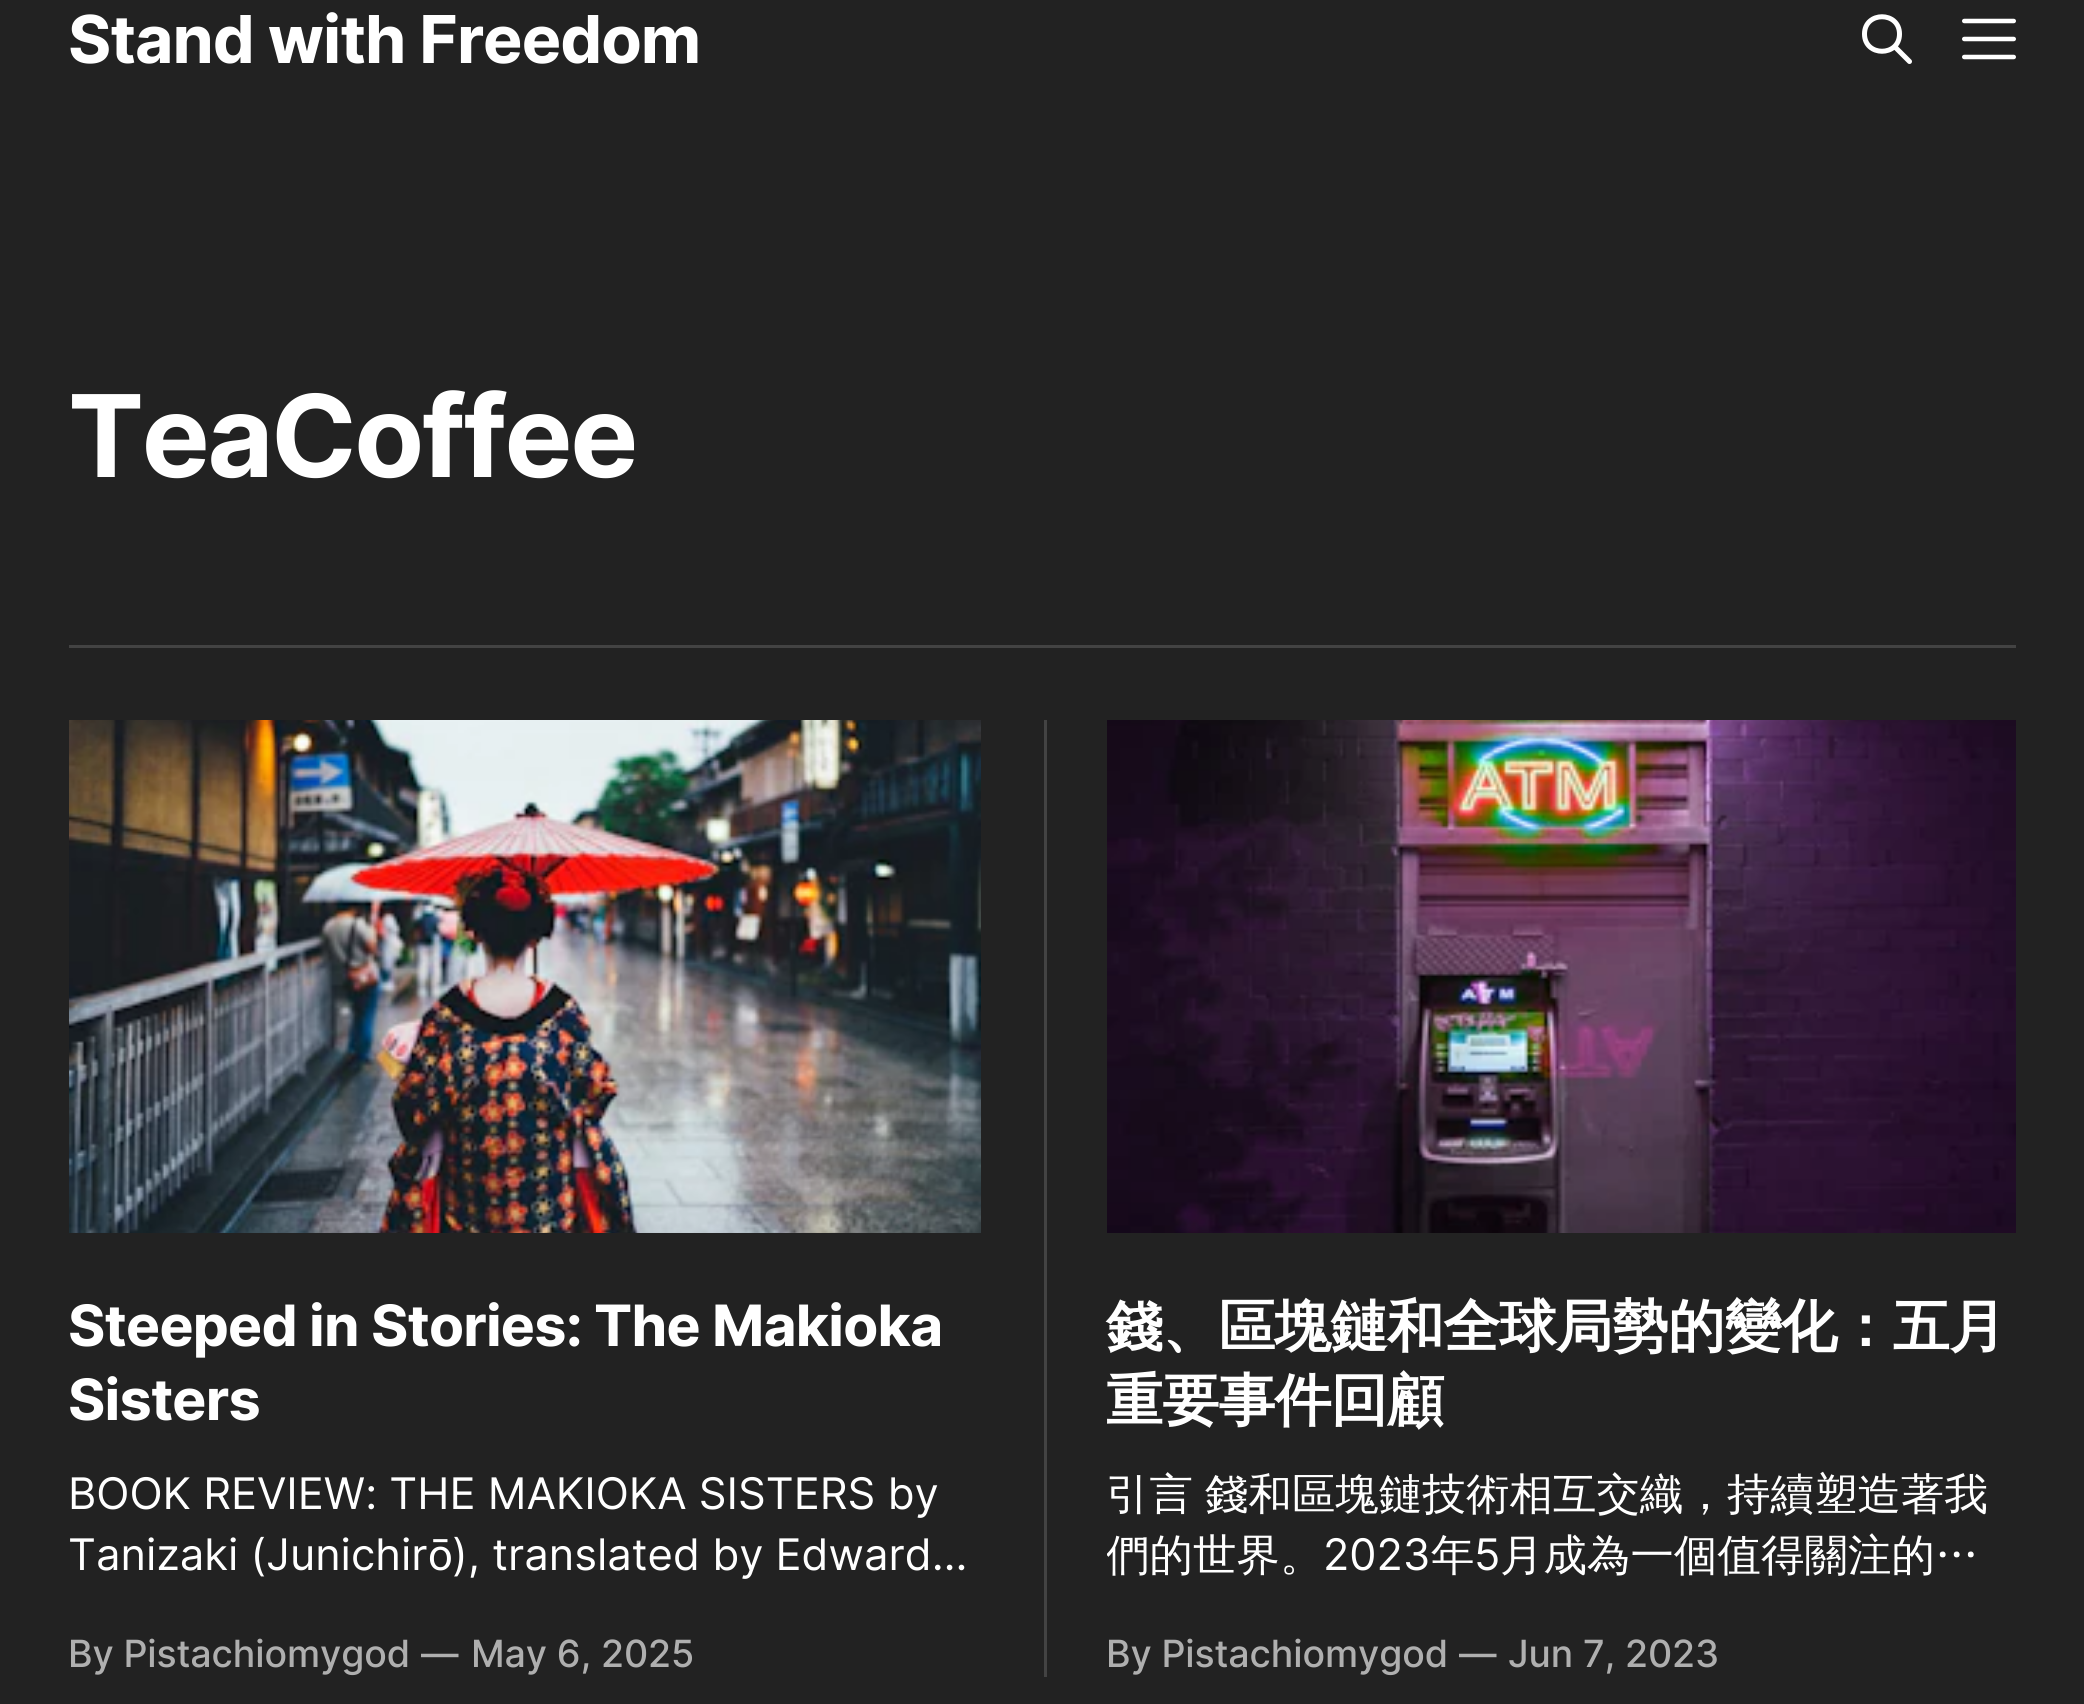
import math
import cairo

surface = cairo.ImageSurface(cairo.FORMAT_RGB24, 2084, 1704)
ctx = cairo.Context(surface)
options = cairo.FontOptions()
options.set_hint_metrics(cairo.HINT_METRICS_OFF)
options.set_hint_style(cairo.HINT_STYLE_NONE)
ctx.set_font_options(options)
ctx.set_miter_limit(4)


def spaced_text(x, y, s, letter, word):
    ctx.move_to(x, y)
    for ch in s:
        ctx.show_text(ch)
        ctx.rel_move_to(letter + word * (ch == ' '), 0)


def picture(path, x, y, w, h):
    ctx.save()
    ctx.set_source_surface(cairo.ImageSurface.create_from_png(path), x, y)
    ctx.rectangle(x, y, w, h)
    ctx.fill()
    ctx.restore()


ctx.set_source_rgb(0.133, 0.133, 0.133)
ctx.paint()
ctx.select_font_face("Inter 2", cairo.FONT_SLANT_NORMAL, cairo.FONT_WEIGHT_BOLD)
ctx.set_font_size(66)
ctx.set_source_rgb(1, 1, 1)
spaced_text(68, 63, "Stand with Freedom", -1, 0)
ctx.new_path()
ctx.move_to(1909.5, 61.5)
ctx.line_to(1894.5, 46.5)
ctx.move_to(1899.5, 34)
ctx.curve_to(1899.5, 57, 1864.5, 57, 1864.5, 34)
ctx.curve_to(1864.5, 11, 1899.5, 11, 1899.5, 34)
ctx.close_path()
ctx.set_line_width(5)
ctx.set_line_cap(cairo.LINE_CAP_ROUND)
ctx.set_line_join(cairo.LINE_JOIN_ROUND)
ctx.stroke()
picture("img1.png", 1962, 18, 54, 42)
ctx.set_source_rgb(0.263, 0.263, 0.263)
ctx.rectangle(69, 645, 1947, 3)
ctx.fill()
ctx.select_font_face("Inter", cairo.FONT_SLANT_NORMAL, cairo.FONT_WEIGHT_BOLD)
ctx.set_font_size(114)
ctx.set_source_rgb(1, 1, 1)
spaced_text(68, 477, "TeaCoffee", -2.5, 0)
picture("img2.png", 69, 720, 912, 513)
ctx.select_font_face("Inter 2", cairo.FONT_SLANT_NORMAL, cairo.FONT_WEIGHT_BOLD)
ctx.set_font_size(57)
spaced_text(68, 1346, "Steeped in Stories: The Makioka", -0.8, 0)
spaced_text(68, 1420, "Sisters", -0.8, 0)
ctx.select_font_face("Inter")
ctx.set_font_size(43.5)
ctx.move_to(68, 1509)
ctx.show_text("BOOK REVIEW: THE MAKIOKA SISTERS by")
ctx.move_to(68, 1570)
ctx.show_text("Tanizaki (Junichir")
ctx.select_font_face("Roboto")
ctx.move_to(428, 1570)
ctx.show_text("ō")
ctx.select_font_face("Inter")
ctx.move_to(452, 1570)
ctx.show_text("), translated by Edward…")
ctx.select_font_face("Inter Medium")
ctx.set_font_size(37.5)
ctx.set_source_rgb(0.686, 0.686, 0.686)
spaced_text(68, 1667, "By Pistachiomygod", -0.1, 0)
spaced_text(421, 1667, "—", -0.1, 0)
spaced_text(471, 1667, "May 6, 2025", -0.1, 0)
ctx.set_source_rgb(0.263, 0.263, 0.263)
ctx.rectangle(1044, 720, 3, 957)
ctx.fill()
picture("img3.png", 1107, 720, 909, 513)
ctx.select_font_face("WenQuanYi Zen Hei", cairo.FONT_SLANT_NORMAL, cairo.FONT_WEIGHT_BOLD)
ctx.set_font_size(57)
ctx.set_source_rgb(1, 1, 1)
spaced_text(1106, 1346, "錢、區塊鏈和全球局勢的變化：五月", -0.8, 0)
spaced_text(1106, 1420, "重要事件回顧", -0.8, 0)
ctx.select_font_face("WenQuanYi Zen Hei Medium")
ctx.set_font_size(43.5)
ctx.move_to(1106, 1509)
ctx.show_text("引言")
ctx.move_to(1205, 1509)
ctx.show_text("錢和區塊鏈技術相互交織，持續塑造著我")
ctx.save()
ctx.rectangle(1107, 1464, 909, 123)
ctx.clip()
ctx.move_to(1106, 1570)
ctx.show_text("們的世界。")
ctx.restore()
ctx.select_font_face("Inter")
ctx.move_to(1323, 1570)
ctx.show_text("2023")
ctx.select_font_face("WenQuanYi Zen Hei Medium")
ctx.move_to(1431, 1570)
ctx.show_text("年")
ctx.select_font_face("Inter")
ctx.move_to(1474, 1570)
ctx.show_text("5")
ctx.select_font_face("WenQuanYi Zen Hei Medium")
ctx.move_to(1500, 1570)
ctx.show_text("月成為一個值得關注的…")
ctx.select_font_face("Inter Medium")
ctx.set_font_size(37.5)
ctx.set_source_rgb(0.686, 0.686, 0.686)
spaced_text(1106, 1667, "By Pistachiomygod", -0.1, 0)
spaced_text(1459, 1667, "—", -0.1, 0)
spaced_text(1508, 1667, "Jun 7, 2023", -0.1, 0)
surface.write_to_png("page.png")
